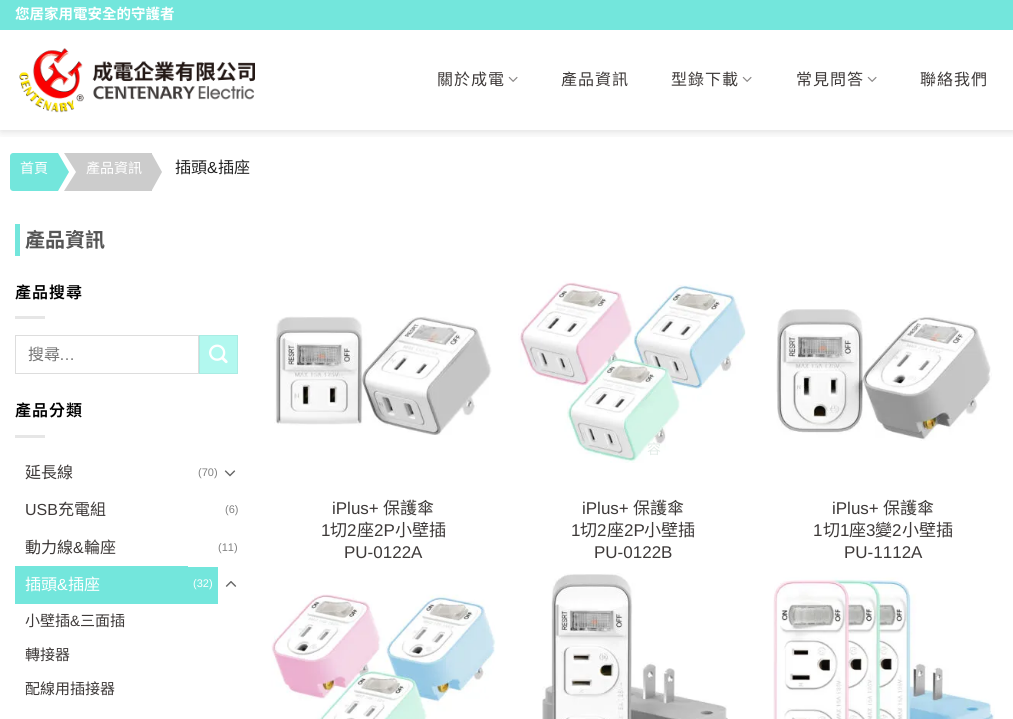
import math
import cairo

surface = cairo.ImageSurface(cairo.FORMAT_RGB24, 1013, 719)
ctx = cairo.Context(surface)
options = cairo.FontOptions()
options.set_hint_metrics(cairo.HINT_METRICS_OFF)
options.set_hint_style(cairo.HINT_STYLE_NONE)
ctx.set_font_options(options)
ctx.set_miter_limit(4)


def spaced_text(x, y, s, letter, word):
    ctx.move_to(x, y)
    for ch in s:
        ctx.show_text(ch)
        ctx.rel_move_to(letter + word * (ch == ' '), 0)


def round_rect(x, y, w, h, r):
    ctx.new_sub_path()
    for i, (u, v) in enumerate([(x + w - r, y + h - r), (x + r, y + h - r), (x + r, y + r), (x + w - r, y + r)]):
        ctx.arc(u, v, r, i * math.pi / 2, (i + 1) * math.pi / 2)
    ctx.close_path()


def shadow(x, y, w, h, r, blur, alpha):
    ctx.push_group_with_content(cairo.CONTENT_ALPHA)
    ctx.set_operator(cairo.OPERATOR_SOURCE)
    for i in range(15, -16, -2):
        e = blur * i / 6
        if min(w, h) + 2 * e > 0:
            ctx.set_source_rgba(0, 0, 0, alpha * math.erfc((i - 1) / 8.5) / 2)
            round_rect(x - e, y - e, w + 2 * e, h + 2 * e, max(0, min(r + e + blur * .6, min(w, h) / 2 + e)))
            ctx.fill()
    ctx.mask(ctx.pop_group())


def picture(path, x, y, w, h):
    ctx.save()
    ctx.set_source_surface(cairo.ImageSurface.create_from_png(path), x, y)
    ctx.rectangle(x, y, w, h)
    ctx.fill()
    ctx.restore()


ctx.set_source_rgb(1, 1, 1)
ctx.paint()
ctx.save()
ctx.rectangle(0, 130, 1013, 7)
ctx.clip()
ctx.set_source_rgb(0, 0, 0)
shadow(1, 1, 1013, 130, 0, 5, 0.15)
ctx.restore()
ctx.set_source_rgb(0.451, 0.902, 0.863)
ctx.rectangle(0, 0, 1013, 30)
ctx.fill()
ctx.select_font_face("Noto Sans TC", cairo.FONT_SLANT_NORMAL, cairo.FONT_WEIGHT_BOLD)
ctx.set_font_size(14.5)
ctx.set_source_rgb(1, 1, 1)
ctx.move_to(15, 19)
ctx.show_text("您居家用電安全的守護者")
picture("img1.png", 19, 48, 236, 65)
ctx.select_font_face("Noto Sans TC")
ctx.set_font_size(16)
ctx.set_source_rgb(0.243, 0.227, 0.224)
spaced_text(437, 85, "關於成電", 1, 0)
picture("img2.png", 508, 76, 10, 6)
spaced_text(561, 85, "產品資訊", 1, 0)
spaced_text(671, 85, "型錄下載", 1, 0)
picture("img2.png", 742, 76, 10, 6)
spaced_text(796, 85, "常見問答", 1, 0)
picture("img2.png", 867, 76, 10, 6)
spaced_text(920, 85, "聯絡我們", 1, 0)
ctx.set_source_rgb(0.451, 0.902, 0.863)
ctx.new_path()
ctx.move_to(13, 153)
ctx.line_to(58, 153)
ctx.line_to(58, 191)
ctx.line_to(13, 191)
ctx.curve_to(11.5, 191, 10, 189.5, 10, 188)
ctx.line_to(10, 156)
ctx.curve_to(10, 154.5, 11.5, 153, 13, 153)
ctx.close_path()
ctx.fill()
ctx.set_font_size(14)
ctx.set_source_rgb(1, 1, 1)
ctx.move_to(20, 173)
ctx.show_text("首頁")
ctx.set_source_rgb(0.451, 0.902, 0.863)
ctx.new_path()
ctx.move_to(58, 191)
ctx.line_to(58, 153)
ctx.line_to(69, 172)
ctx.close_path()
ctx.fill()
ctx.set_source_rgb(0.8, 0.8, 0.8)
ctx.rectangle(76, 153, 76, 38)
ctx.fill()
ctx.new_path()
ctx.move_to(64, 153)
ctx.line_to(76, 153)
ctx.line_to(76, 172)
ctx.close_path()
ctx.move_to(76, 191)
ctx.line_to(64, 191)
ctx.line_to(76, 172)
ctx.close_path()
ctx.fill()
ctx.set_source_rgb(1, 1, 1)
ctx.move_to(86, 173)
ctx.show_text("產品資訊")
ctx.set_source_rgb(0.8, 0.8, 0.8)
ctx.new_path()
ctx.move_to(152, 190)
ctx.line_to(152, 154)
ctx.line_to(162, 172)
ctx.close_path()
ctx.fill()
ctx.set_font_size(16)
ctx.set_source_rgb(0.133, 0.133, 0.133)
ctx.move_to(175, 173)
ctx.show_text("插頭")
ctx.select_font_face("Liberation Sans")
ctx.move_to(207, 173)
ctx.show_text("&")
ctx.select_font_face("Noto Sans TC")
ctx.move_to(218, 173)
ctx.show_text("插座")
ctx.set_source_rgb(0.451, 0.902, 0.863)
ctx.rectangle(15, 224, 5, 32)
ctx.fill()
ctx.select_font_face("Noto Sans TC", cairo.FONT_SLANT_NORMAL, cairo.FONT_WEIGHT_BOLD)
ctx.set_font_size(20)
ctx.set_source_rgb(0.333, 0.333, 0.333)
ctx.move_to(25, 247)
ctx.show_text("產品資訊")
ctx.select_font_face("Noto Sans TC SemiBold")
ctx.set_font_size(16)
ctx.set_source_rgb(0, 0, 0)
spaced_text(15, 298, "產品搜尋", 1, 0)
ctx.set_source_rgb(0.902, 0.902, 0.902)
ctx.rectangle(15, 316, 30, 3)
ctx.fill()
ctx.rectangle(15.5, 335.5, 183, 38)
ctx.set_source_rgb(0.867, 0.867, 0.867)
ctx.set_line_width(1)
ctx.stroke()
ctx.select_font_face("Noto Sans TC")
ctx.set_source_rgb(0.459, 0.459, 0.459)
ctx.move_to(28, 360)
ctx.show_text("搜尋")
ctx.select_font_face("Liberation Sans")
ctx.move_to(59, 360)
ctx.show_text("…")
ctx.set_source_rgb(0.698, 0.969, 0.937)
ctx.rectangle(199.5, 335.5, 38, 38)
ctx.fill_preserve()
ctx.set_source_rgb(0.663, 0.922, 0.89)
ctx.stroke()
picture("img3.png", 209, 344, 19, 20)
ctx.select_font_face("Noto Sans TC SemiBold")
ctx.set_source_rgb(0, 0, 0)
spaced_text(15, 416, "產品分類", 1, 0)
ctx.set_source_rgb(0.902, 0.902, 0.902)
ctx.rectangle(15, 435, 30, 3)
ctx.fill()
ctx.select_font_face("Noto Sans TC")
ctx.set_source_rgb(0.243, 0.227, 0.224)
ctx.move_to(25, 478)
ctx.show_text("延長線")
ctx.select_font_face("Liberation Sans")
ctx.set_font_size(11)
ctx.set_source_rgb(0.502, 0.502, 0.502)
ctx.move_to(198, 476)
ctx.show_text("(70)")
picture("img4.png", 224, 470, 12, 7)
ctx.set_font_size(16)
ctx.set_source_rgb(0.243, 0.227, 0.224)
ctx.move_to(25, 515)
ctx.show_text("USB")
ctx.select_font_face("Noto Sans TC")
ctx.move_to(58, 515)
ctx.show_text("充電組")
ctx.select_font_face("Liberation Sans")
ctx.set_font_size(11)
ctx.set_source_rgb(0.502, 0.502, 0.502)
ctx.move_to(225, 513)
ctx.show_text("(6)")
ctx.select_font_face("Noto Sans TC")
ctx.set_font_size(16)
ctx.set_source_rgb(0.243, 0.227, 0.224)
ctx.move_to(25, 553)
ctx.show_text("動力線")
ctx.select_font_face("Liberation Sans")
ctx.move_to(73, 553)
ctx.show_text("&")
ctx.select_font_face("Noto Sans TC")
ctx.move_to(84, 553)
ctx.show_text("輪座")
ctx.select_font_face("Liberation Sans")
ctx.set_font_size(11)
ctx.set_source_rgb(0.502, 0.502, 0.502)
ctx.move_to(218, 551)
ctx.show_text("(11)")
ctx.set_source_rgb(0.451, 0.902, 0.863)
ctx.rectangle(15, 566, 173, 38)
ctx.fill()
ctx.select_font_face("Noto Sans TC")
ctx.set_font_size(16)
ctx.set_source_rgb(1, 1, 1)
ctx.move_to(25, 590)
ctx.show_text("插頭")
ctx.select_font_face("Liberation Sans")
ctx.move_to(57, 590)
ctx.show_text("&")
ctx.select_font_face("Noto Sans TC")
ctx.move_to(68, 590)
ctx.show_text("插座")
ctx.set_source_rgb(0.451, 0.902, 0.863)
ctx.rectangle(188, 567, 30, 37)
ctx.fill()
ctx.select_font_face("Liberation Sans")
ctx.set_font_size(11)
ctx.set_source_rgb(1, 1, 1)
ctx.move_to(193, 587)
ctx.show_text("(32)")
picture("img5.png", 225, 581, 12, 6)
ctx.select_font_face("Noto Sans TC")
ctx.set_font_size(15)
ctx.set_source_rgb(0.243, 0.227, 0.224)
ctx.move_to(25, 626)
ctx.show_text("小壁插")
ctx.select_font_face("Liberation Sans")
ctx.move_to(70, 626)
ctx.show_text("&")
ctx.select_font_face("Noto Sans TC")
ctx.move_to(80, 626)
ctx.show_text("三面插")
ctx.move_to(25, 660)
ctx.show_text("轉接器")
ctx.move_to(25, 694)
ctx.show_text("配線用插接器")
picture("img6.png", 274, 316, 218, 119)
ctx.select_font_face("Liberation Sans")
ctx.set_font_size(17)
ctx.move_to(332, 514)
ctx.show_text("iPlus+")
ctx.select_font_face("Noto Sans TC")
ctx.move_to(383, 514)
ctx.show_text("保護傘")
ctx.select_font_face("Liberation Sans")
ctx.move_to(321, 536)
ctx.show_text("1")
ctx.select_font_face("Noto Sans TC")
ctx.move_to(330, 536)
ctx.show_text("切")
ctx.select_font_face("Liberation Sans")
ctx.move_to(347, 536)
ctx.show_text("2")
ctx.select_font_face("Noto Sans TC")
ctx.move_to(357, 536)
ctx.show_text("座")
ctx.select_font_face("Liberation Sans")
ctx.move_to(374, 536)
ctx.show_text("2P")
ctx.select_font_face("Noto Sans TC")
ctx.move_to(395, 536)
ctx.show_text("小壁插")
ctx.select_font_face("Liberation Sans")
ctx.move_to(344, 558)
ctx.show_text("PU-0122A")
picture("img7.png", 518, 280, 228, 183)
ctx.select_font_face("Noto Sans TC")
ctx.set_font_size(14)
ctx.set_source_rgb(0.89, 0.922, 0.91)
ctx.move_to(647, 454)
ctx.show_text("容")
ctx.select_font_face("Liberation Sans")
ctx.set_font_size(17)
ctx.set_source_rgb(0.243, 0.227, 0.224)
ctx.move_to(582, 514)
ctx.show_text("iPlus+")
ctx.select_font_face("Noto Sans TC")
ctx.move_to(633, 514)
ctx.show_text("保護傘")
ctx.select_font_face("Liberation Sans")
ctx.move_to(571, 536)
ctx.show_text("1")
ctx.select_font_face("Noto Sans TC")
ctx.move_to(580, 536)
ctx.show_text("切")
ctx.select_font_face("Liberation Sans")
ctx.move_to(597, 536)
ctx.show_text("2")
ctx.select_font_face("Noto Sans TC")
ctx.move_to(607, 536)
ctx.show_text("座")
ctx.select_font_face("Liberation Sans")
ctx.move_to(624, 536)
ctx.show_text("2P")
ctx.select_font_face("Noto Sans TC")
ctx.move_to(644, 536)
ctx.show_text("小壁插")
ctx.select_font_face("Liberation Sans")
ctx.move_to(594, 558)
ctx.show_text("PU-0122B")
picture("img8.png", 776, 309, 216, 132)
ctx.move_to(832, 514)
ctx.show_text("iPlus+")
ctx.select_font_face("Noto Sans TC")
ctx.move_to(883, 514)
ctx.show_text("保護傘")
ctx.select_font_face("Liberation Sans")
ctx.move_to(813, 536)
ctx.show_text("1")
ctx.select_font_face("Noto Sans TC")
ctx.move_to(823, 536)
ctx.show_text("切")
ctx.select_font_face("Liberation Sans")
ctx.move_to(840, 536)
ctx.show_text("1")
ctx.select_font_face("Noto Sans TC")
ctx.move_to(849, 536)
ctx.show_text("座")
ctx.select_font_face("Liberation Sans")
ctx.move_to(866, 536)
ctx.show_text("3")
ctx.select_font_face("Noto Sans TC")
ctx.move_to(875, 536)
ctx.show_text("變")
ctx.select_font_face("Liberation Sans")
ctx.move_to(892, 536)
ctx.show_text("2")
ctx.select_font_face("Noto Sans TC")
ctx.move_to(902, 536)
ctx.show_text("小壁插")
ctx.select_font_face("Liberation Sans")
ctx.move_to(844, 558)
ctx.show_text("PU-1112A")
picture("img9.png", 271, 594, 225, 125)
picture("img10.png", 542, 573, 186, 146)
picture("img11.png", 773, 577, 222, 142)
surface.write_to_png("page.png")
